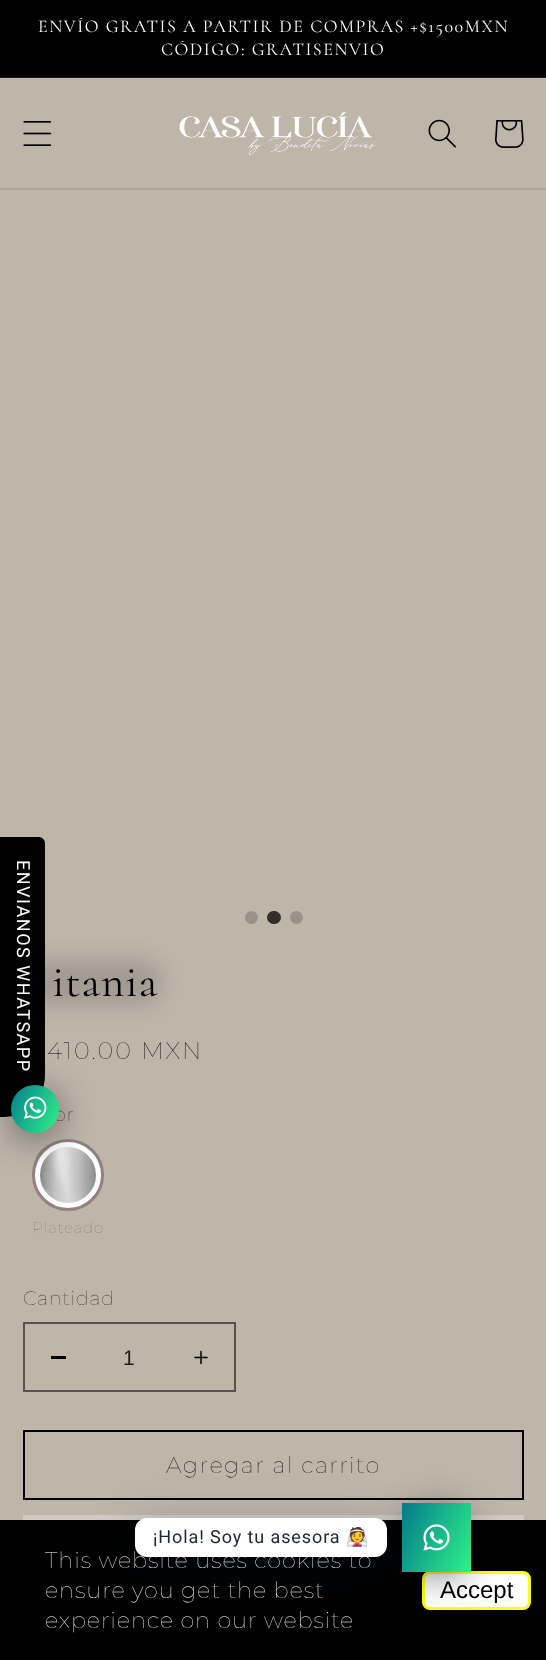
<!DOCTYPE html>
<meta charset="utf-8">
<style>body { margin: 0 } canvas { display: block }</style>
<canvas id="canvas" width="546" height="1660"></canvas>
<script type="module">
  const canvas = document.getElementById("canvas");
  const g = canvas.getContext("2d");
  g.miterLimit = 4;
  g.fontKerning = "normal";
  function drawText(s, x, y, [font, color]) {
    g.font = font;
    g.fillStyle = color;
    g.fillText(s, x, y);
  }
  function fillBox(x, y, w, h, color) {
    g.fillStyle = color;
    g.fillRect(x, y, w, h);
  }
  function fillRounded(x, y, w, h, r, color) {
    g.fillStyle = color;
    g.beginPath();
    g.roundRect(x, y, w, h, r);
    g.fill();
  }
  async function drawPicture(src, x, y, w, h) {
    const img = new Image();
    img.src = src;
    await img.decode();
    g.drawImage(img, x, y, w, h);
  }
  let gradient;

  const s1 = ["18px Cormorant", "#FFFFFF"];
  const s2 = ["100 19.5px Montserrat", "#302E2B"];
  const s3 = ["18px Roboto", "#1E2433"];
  const s4 = ["18px Noto Color Emoji", "#1E2433"];
  const s5 = ["45px Cormorant", "#000000"];
  const s6 = ["100 24px Montserrat", "#000000"];
  const s7 = ["100 15px Montserrat", "#877474"];
  const s8 = ["21px Liberation Sans", "#1D1B1A"];
  const s9 = ["100 22.5px Montserrat", "#000000"];
  const s10 = ["100 22.5px Montserrat", "#FFFFFF"];
  const s11 = ["24px Liberation Sans", "#000000"];

  fillBox(0, 0, 546, 1660, "#BFB6AA");
  fillBox(0, 78, 546, 1, "#C4BCB1");
  fillBox(0, 0, 546, 77, "#000000");
  fillBox(0, 77, 546, 1, "#141414");
  g.letterSpacing = "1.5px";
  drawText("ENVÍO GRATIS A PARTIR DE COMPRAS +$1500MXN", 38, 32, s1);
  drawText("CÓDIGO: GRATISENVIO", 161, 55, s1);
  fillBox(0, 188, 546, 2, "#B0A79C");
  await drawPicture("pic1.png", 23, 121, 29, 25);
  await drawPicture("pic2.png", 179, 112, 197, 43);
  await drawPicture("pic3.png", 428, 119, 28, 29);
  await drawPicture("pic4.png", 495, 120, 29, 28);
  g.fillStyle = "rgba(0, 0, 0, 0.15)";
  g.filter = "blur(10.5px)";
  g.beginPath();
  g.roundRect(-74, 960, 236, 45, 42);
  g.fill();
  g.filter = "none";
  g.fillStyle = "#000000";
  g.beginPath();
  g.moveTo(0, 1117);
  g.lineTo(0, 837);
  g.lineTo(39, 837);
  g.bezierCurveTo(42, 837, 45, 840, 45, 843);
  g.lineTo(45, 1075);
  g.bezierCurveTo(45, 1099, 26, 1117, 3, 1117);
  g.closePath();
  g.fill();
  g.font = "18px Roboto";
  g.fillStyle = "#FFFFFF";
  g.save();
  g.translate(17, 860);
  g.rotate(90 * Math.PI / 180);
  g.fillText("ENVIANOS WHATSAPP", 0, 0);
  g.restore();
  await drawPicture("pic7.png", 36, 1143, 63, 63);
  g.beginPath();
  g.arc(68, 1175, 33.5, 0, Math.PI * 2);
  g.strokeStyle = "#918181";
  g.lineWidth = 5;
  g.stroke();
  g.beginPath();
  g.arc(68, 1175, 30.5, 0, Math.PI * 2);
  g.strokeStyle = "#FFFFFF";
  g.stroke();
  g.fillStyle = "rgba(2, 6, 16, 0.5)";
  g.filter = "blur(18px)";
  g.beginPath();
  g.roundRect(11, 1091, 48, 48, 24);
  g.fill();
  g.filter = "none";
  g.letterSpacing = "0.5px";
  drawText("or", 54, 1121, s2);
  gradient = g.createLinearGradient(5.6, 1095, 63, 1122);
  gradient.addColorStop(0, "#047C8D");
  gradient.addColorStop(1, "#2FF289");
  g.fillStyle = gradient;
  g.beginPath();
  g.arc(35, 1109, 24, 0, Math.PI * 2);
  g.fill();
  await drawPicture("pic5.png", 24, 1096, 23, 23);
  g.strokeStyle = "#000000";
  g.lineWidth = 2;
  g.strokeRect(24, 1431, 499, 68);
  fillBox(23, 1515, 501, 5, "#D1CBC2");
  fillBox(0, 1520, 546, 140, "#000000");
  g.fillStyle = "#FFFFFF";
  g.beginPath();
  g.roundRect(423.5, 1572.5, 106, 36, 6.5);
  g.fill();
  g.strokeStyle = "#FAFF16";
  g.lineWidth = 3;
  g.stroke();
  g.fillStyle = "rgba(2, 6, 16, 0.5)";
  g.filter = "blur(18px)";
  g.beginPath();
  g.roundRect(402, 1509, 69, 69, 34.5);
  g.fill();
  g.filter = "none";
  gradient = g.createLinearGradient(395, 1518, 478, 1557);
  gradient.addColorStop(0, "#047C8D");
  gradient.addColorStop(1, "#2FF289");
  g.fillStyle = gradient;
  g.fillRect(402, 1503, 69, 69);
  g.fillStyle = "rgba(0, 18, 46, 0.24)";
  g.filter = "blur(24px)";
  g.beginPath();
  g.roundRect(135, 1527, 252, 39, 12);
  g.fill();
  g.filter = "none";
  fillRounded(135, 1518, 252, 39, 12, "#FFFFFF");
  g.letterSpacing = "0.9px";
  drawText("¡Hola! Soy tu asesora", 153, 1543, s3);
  drawText("👰", 346, 1543, s4);
  await drawPicture("pic6.png", 423, 1524, 27, 27);
  g.fillStyle = "#999288";
  g.beginPath();
  g.arc(251.5, 917.5, 6.5, 0, Math.PI * 2);
  g.fill();
  fillRounded(267, 911, 14, 13, 6.5, "#302E2B");
  g.fillStyle = "#999288";
  g.beginPath();
  g.arc(296.5, 917.5, 6.5, 0, Math.PI * 2);
  g.fill();
  drawText("itania", 52, 996, s5);
  g.letterSpacing = "2px";
  drawText("410.00 MXN", 47, 1059, s6);
  g.letterSpacing = "0.9px";
  drawText("Plateado", 32, 1233, s7);
  g.letterSpacing = "0.5px";
  drawText("Cantidad", 23, 1305, s2);
  fillBox(51, 1356, 15, 3, "#000000");
  await drawPicture("pic8.png", 194, 1350, 14, 15);
  g.strokeStyle = "#56524D";
  g.lineWidth = 2;
  g.strokeRect(24, 1323, 211, 68);
  g.letterSpacing = "0px";
  drawText("1", 123, 1365, s8);
  g.letterSpacing = "1.5px";
  drawText("Agregar al carrito", 166, 1473, s9);
  g.letterSpacing = "0.9px";
  drawText("This website uses cookies to", 45, 1568, s10);
  drawText("ensure you get the best", 45, 1598, s10);
  drawText("experience on our website", 45, 1628, s10);
  g.letterSpacing = "0px";
  drawText("Accept", 440, 1598, s11);
</script>
